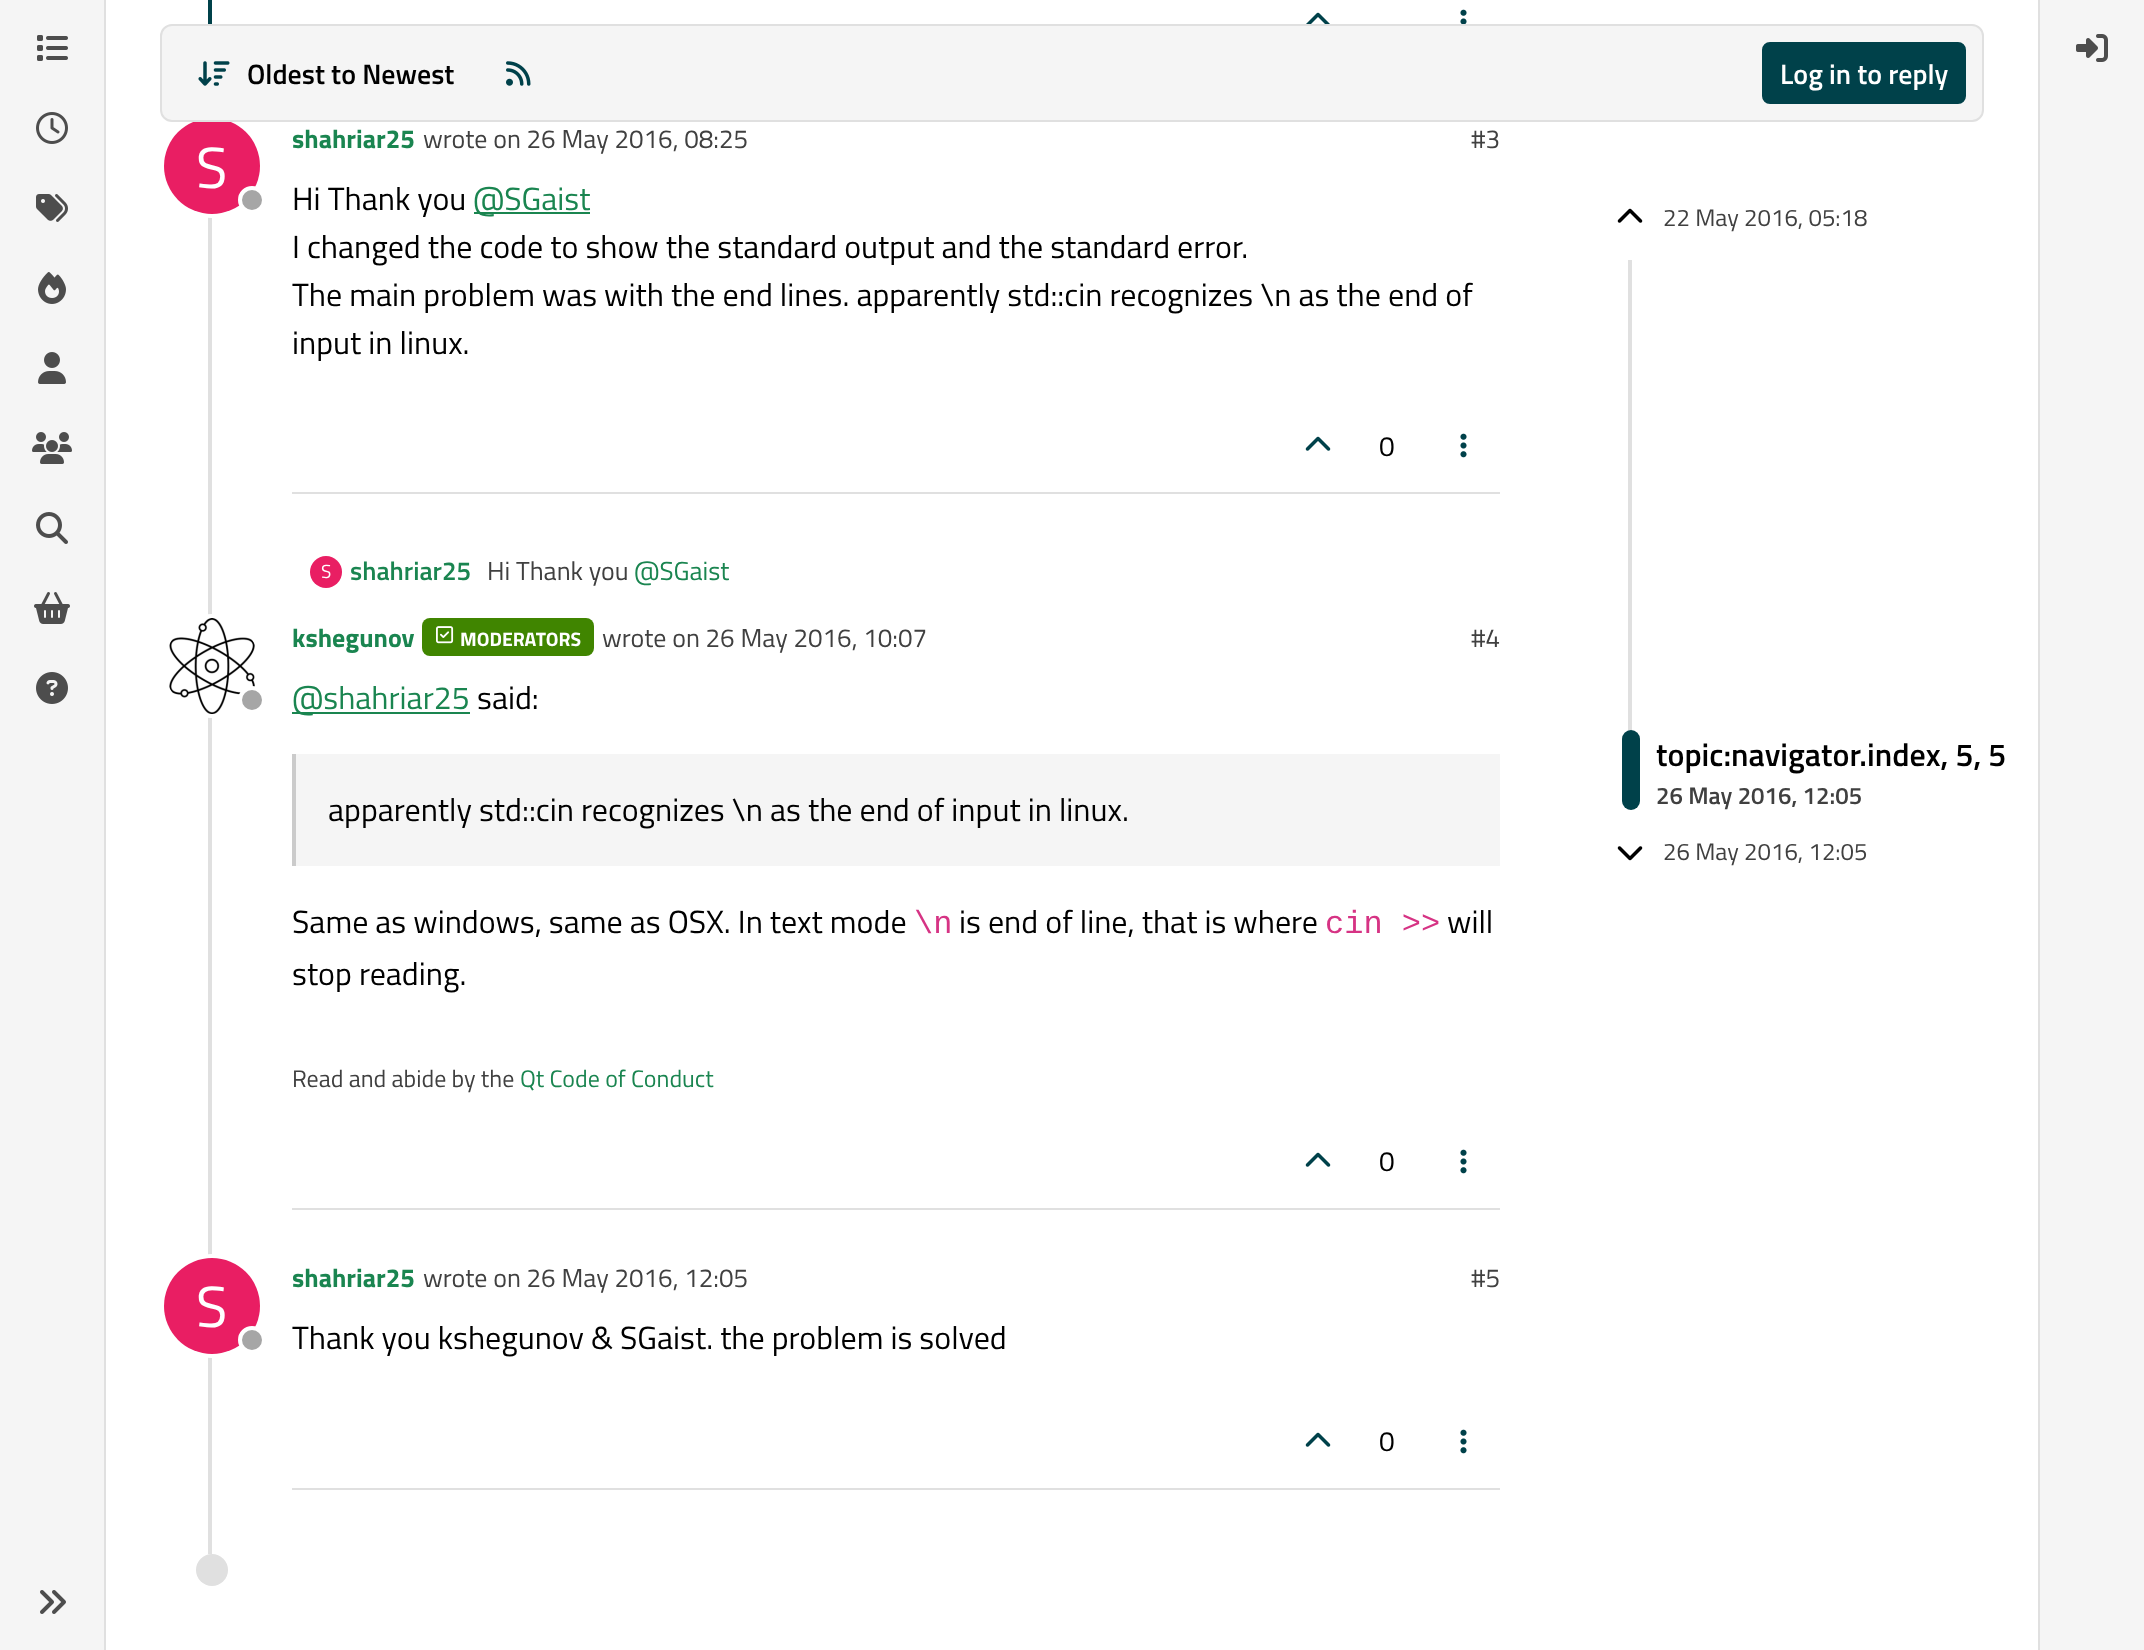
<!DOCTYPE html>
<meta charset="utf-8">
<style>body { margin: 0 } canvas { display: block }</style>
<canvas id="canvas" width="2144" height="1650"></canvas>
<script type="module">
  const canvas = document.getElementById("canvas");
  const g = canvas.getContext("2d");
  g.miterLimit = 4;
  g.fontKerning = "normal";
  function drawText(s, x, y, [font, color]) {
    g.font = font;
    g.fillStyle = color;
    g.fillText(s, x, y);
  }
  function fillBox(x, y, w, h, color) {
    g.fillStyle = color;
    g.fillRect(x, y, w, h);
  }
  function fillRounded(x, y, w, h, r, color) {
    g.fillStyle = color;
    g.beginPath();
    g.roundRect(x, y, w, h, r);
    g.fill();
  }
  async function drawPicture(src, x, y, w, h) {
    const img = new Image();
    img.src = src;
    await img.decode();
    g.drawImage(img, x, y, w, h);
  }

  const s1 = ["600 28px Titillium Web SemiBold", "#000000"];
  const s2 = ["600 28px Titillium Web SemiBold", "#FFFFFF"];
  const s3 = ["58px Titillium Web", "#FFFFFF"];
  const s4 = ["bold 26px Titillium Web", "#1A8550"];
  const s5 = ["26px Titillium Web", "#404040"];
  const s6 = ["32px Titillium Web", "#000000"];
  const s7 = ["32px Titillium Web", "#1A8550"];
  const s8 = ["28px Titillium Web", "#000000"];
  const s9 = ["19px Titillium Web", "#FFFFFF"];
  const s10 = ["600 26px Titillium Web SemiBold", "#1A8550"];
  const s11 = ["26px Titillium Web", "#1A8550"];
  const s12 = ["bold 19.5px Titillium Web", "#FFFFFF"];
  const s13 = ["32px Liberation Mono", "#D63384"];
  const s14 = ["24px Titillium Web", "#404040"];
  const s15 = ["24px Titillium Web", "#1A8550"];
  const s16 = ["600 32px Titillium Web SemiBold", "#000000"];
  const s17 = ["600 24px Titillium Web SemiBold", "#404040"];

  fillBox(0, 0, 2144, 1650, "#FFFFFF");
  fillBox(0, 0, 104, 1650, "#F5F5F5");
  fillBox(104, 0, 2, 1650, "#E0E0E0");
  await drawPicture("pic1.png", 37, 35, 31, 26);
  await drawPicture("pic2.png", 36, 112, 32, 32);
  await drawPicture("pic3.png", 36, 194, 32, 28);
  await drawPicture("pic4.png", 38, 272, 28, 32);
  await drawPicture("pic5.png", 38, 352, 28, 32);
  await drawPicture("pic6.png", 32, 432, 40, 32);
  await drawPicture("pic7.png", 36, 512, 32, 32);
  await drawPicture("pic8.png", 34, 592, 36, 32);
  await drawPicture("pic9.png", 36, 672, 32, 32);
  await drawPicture("pic10.png", 40, 1590, 26, 24);
  fillBox(208, 213, 4, 1341, "#E0E0E0");
  g.beginPath();
  g.arc(212, 166, 50, 0, Math.PI * 2);
  g.strokeStyle = "#FFFFFF";
  g.lineWidth = 4;
  g.stroke();
  g.fillStyle = "#E91E63";
  g.beginPath();
  g.arc(212, 166, 48, 0, Math.PI * 2);
  g.fill();
  g.fillStyle = "#F5F5F5";
  g.beginPath();
  g.roundRect(161, 25, 1822, 96, 11);
  g.fill();
  g.strokeStyle = "#E0E0E0";
  g.lineWidth = 2;
  g.stroke();
  await drawPicture("pic11.png", 198, 61, 32, 25);
  drawText("Oldest to Newest", 247, 84, s1);
  await drawPicture("pic12.png", 506, 61, 25, 25);
  g.fillStyle = "#00414A";
  g.beginPath();
  g.roundRect(1763, 43, 202, 60, 7);
  g.fill();
  g.strokeStyle = "#00414A";
  g.stroke();
  drawText("Log in to reply", 1780, 84, s2);
  fillBox(208, 0, 4, 24, "#00414A");
  await drawPicture("pic13.png", 1306, 12, 24, 12);
  await drawPicture("pic14.png", 1460, 9, 7, 15);
  drawText("S", 196, 188, s3);
  g.fillStyle = "#A6A6A6";
  g.beginPath();
  g.arc(252, 200, 12, 0, Math.PI * 2);
  g.fill();
  g.strokeStyle = "#FFFFFF";
  g.lineWidth = 4;
  g.stroke();
  drawText("shahriar25", 292, 148, s4);
  drawText("wrote on 26 May 2016, 08:25", 423, 148, s5);
  drawText("#3", 1471, 148, s5);
  drawText("Hi Thank you", 292, 210, s6);
  fillBox(474, 212, 116, 2, "#1A8550");
  drawText("@SGaist", 473, 210, s7);
  drawText("I changed the code to show the standard output and the standard error.", 292, 258, s6);
  drawText("The main problem was with the end lines. apparently std::cin recognizes \\n as the end of", 292, 306, s6);
  drawText("input in linux.", 292, 354, s6);
  fillBox(292, 492, 1208, 2, "#E0E0E0");
  await drawPicture("pic15.png", 1305, 436, 26, 15);
  drawText("0", 1379, 456, s8);
  await drawPicture("pic16.png", 1460, 433, 7, 25);
  g.fillStyle = "#E91E63";
  g.beginPath();
  g.arc(326, 572, 16, 0, Math.PI * 2);
  g.fill();
  drawText("S", 321, 578, s9);
  drawText("shahriar25", 350, 580, s10);
  drawText("Hi Thank you", 487, 580, s5);
  drawText("@SGaist", 634, 580, s11);
  g.fillStyle = "#FFFFFF";
  g.beginPath();
  g.arc(212, 666, 50, 0, Math.PI * 2);
  g.fill();
  g.stroke();
  await drawPicture("pic17.png", 169, 618, 86, 96);
  g.fillStyle = "#A6A6A6";
  g.beginPath();
  g.arc(252, 700, 12, 0, Math.PI * 2);
  g.fill();
  g.stroke();
  drawText("kshegunov", 292, 647, s4);
  fillRounded(422, 618, 172, 38, 8, "#408500");
  await drawPicture("pic18.png", 436, 626, 18, 18);
  drawText("MODERATORS", 460, 646, s12);
  drawText("wrote on 26 May 2016, 10:07", 602, 647, s5);
  drawText("#4", 1471, 647, s5);
  fillBox(292, 712, 178, 2, "#1A8550");
  drawText("@shahriar25", 292, 709, s7);
  drawText("said:", 477, 709, s6);
  fillBox(296, 754, 1204, 112, "#F5F5F5");
  fillBox(292, 754, 4, 112, "#CBCBCB");
  drawText("apparently std::cin recognizes \\n as the end of input in linux.", 328, 821, s6);
  drawText("Same as windows, same as OSX. In text mode", 292, 933, s6);
  drawText("\\n", 914, 933, s13);
  drawText("is end of line, that is where", 959, 933, s6);
  drawText("cin >>", 1325, 933, s13);
  drawText("will", 1447, 933, s6);
  drawText("stop reading.", 292, 985, s6);
  fillBox(292, 1208, 1208, 2, "#E0E0E0");
  drawText("Read and abide by the", 292, 1087, s14);
  drawText("Qt Code of Conduct", 520, 1087, s15);
  await drawPicture("pic15.png", 1305, 1152, 26, 15);
  drawText("0", 1379, 1171, s8);
  await drawPicture("pic16.png", 1460, 1149, 7, 25);
  g.beginPath();
  g.arc(212, 1306, 50, 0, Math.PI * 2);
  g.stroke();
  g.fillStyle = "#E91E63";
  g.beginPath();
  g.arc(212, 1306, 48, 0, Math.PI * 2);
  g.fill();
  drawText("S", 196, 1327, s3);
  g.fillStyle = "#A6A6A6";
  g.beginPath();
  g.arc(252, 1340, 12, 0, Math.PI * 2);
  g.fill();
  g.stroke();
  drawText("shahriar25", 292, 1287, s4);
  drawText("wrote on 26 May 2016, 12:05", 423, 1287, s5);
  drawText("#5", 1471, 1287, s5);
  drawText("Thank you kshegunov & SGaist. the problem is solved", 292, 1349, s6);
  fillBox(292, 1488, 1208, 2, "#E0E0E0");
  await drawPicture("pic15.png", 1305, 1432, 26, 15);
  drawText("0", 1379, 1451, s8);
  await drawPicture("pic16.png", 1460, 1429, 7, 25);
  g.fillStyle = "#E0E0E0";
  g.beginPath();
  g.arc(212, 1570, 16, 0, Math.PI * 2);
  g.fill();
  await drawPicture("pic19.png", 1617, 208, 26, 15);
  drawText("22 May 2016, 05:18", 1663, 226, s14);
  fillBox(1628, 260, 4, 550, "#E0E0E0");
  fillRounded(1622, 730, 18, 80, 9, "#00414A");
  drawText("topic:navigator.index, 5, 5", 1656, 766, s16);
  drawText("26 May 2016, 12:05", 1656, 804, s17);
  await drawPicture("pic20.png", 1617, 846, 26, 15);
  drawText("26 May 2016, 12:05", 1663, 860, s14);
  fillBox(2040, 0, 104, 1650, "#F5F5F5");
  fillBox(2038, 0, 2, 1650, "#E0E0E0");
  await drawPicture("pic21.png", 2076, 34, 32, 28);
</script>
